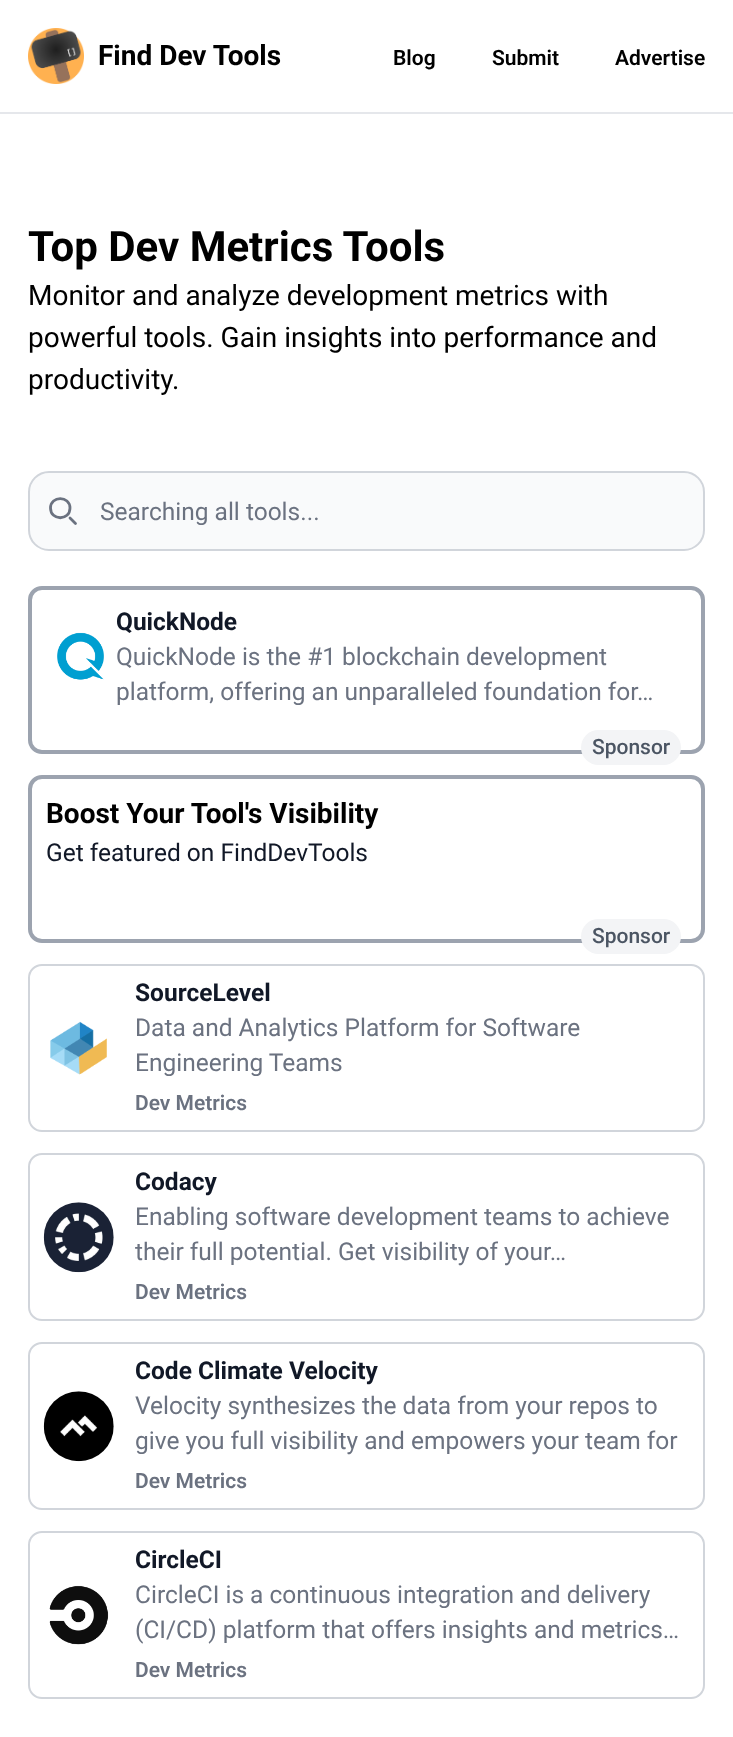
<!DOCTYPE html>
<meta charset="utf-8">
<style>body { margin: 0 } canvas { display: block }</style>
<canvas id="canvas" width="733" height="1737"></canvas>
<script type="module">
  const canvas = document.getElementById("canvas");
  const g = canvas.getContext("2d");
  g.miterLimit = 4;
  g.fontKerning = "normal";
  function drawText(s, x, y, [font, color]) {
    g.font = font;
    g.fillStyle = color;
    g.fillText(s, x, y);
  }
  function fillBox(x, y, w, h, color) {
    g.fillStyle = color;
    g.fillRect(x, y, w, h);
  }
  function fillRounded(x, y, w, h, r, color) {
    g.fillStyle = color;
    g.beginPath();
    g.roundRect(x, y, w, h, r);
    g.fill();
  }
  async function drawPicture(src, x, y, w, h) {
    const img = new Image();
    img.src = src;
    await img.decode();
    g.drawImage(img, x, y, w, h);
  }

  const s1 = ["bold 28px Roboto", "#000000"];
  const s2 = ["600 21px Roboto", "#000000"];
  const s3 = ["bold 42px Roboto", "#000000"];
  const s4 = ["28px Roboto", "#000000"];
  const s5 = ["24.5px Roboto", "#6B7280"];
  const s6 = ["bold 24.5px Roboto", "#111827"];
  const s7 = ["500 21px Roboto", "#4B5563"];
  const s8 = ["24.5px Roboto", "#111827"];
  const s9 = ["600 21px Roboto", "#6B7280"];

  fillBox(0, 0, 733, 1737, "#FFFFFF");
  fillBox(0, 112, 733, 2, "#E5E7EB");
  await drawPicture("pic1.png", 28, 28, 56, 56);
  drawText("Find Dev Tools", 98, 65, s1);
  drawText("Blog", 393, 65, s2);
  drawText("Submit", 492, 65, s2);
  drawText("Advertise", 615, 65, s2);
  drawText("Top Dev Metrics Tools", 28, 261, s3);
  drawText("Monitor and analyze development metrics with", 28, 305, s4);
  drawText("powerful tools. Gain insights into performance and", 28, 347, s4);
  drawText("productivity.", 28, 389, s4);
  g.fillStyle = "#F9FAFB";
  g.beginPath();
  g.roundRect(29, 472, 675, 78, 20);
  g.fill();
  g.strokeStyle = "#D1D5DB";
  g.lineWidth = 2;
  g.stroke();
  g.beginPath();
  g.moveTo(75.5, 523.5);
  g.lineTo(70, 518);
  g.moveTo(70, 508);
  g.bezierCurveTo(70, 521, 50.5, 521, 50.5, 508);
  g.bezierCurveTo(50.5, 495.5, 70, 495.5, 70, 508);
  g.closePath();
  g.strokeStyle = "#6B7280";
  g.lineWidth = 2.8;
  g.lineCap = "round";
  g.lineJoin = "round";
  g.stroke();
  drawText("Searching all tools...", 100, 520, s5);
  g.beginPath();
  g.roundRect(30, 588, 673, 164, 12);
  g.strokeStyle = "#9CA3AF";
  g.lineWidth = 4;
  g.lineJoin = "miter";
  g.stroke();
  await drawPicture("pic2.png", 57, 632, 47, 48);
  drawText("QuickNode", 116, 630, s6);
  drawText("QuickNode is the #1 blockchain development", 116, 665, s5);
  drawText("platform, offering an unparalleled foundation for…", 116, 700, s5);
  fillRounded(581, 730, 100, 35, 17.5, "#F3F4F6");
  drawText("Sponsor", 592, 754, s7);
  g.beginPath();
  g.roundRect(30, 777, 673, 164, 12);
  g.stroke();
  drawText("Boost Your Tool's Visibility", 46, 823, s1);
  fillRounded(581, 919, 100, 35, 17.5, "#F3F4F6");
  drawText("Sponsor", 592, 943, s7);
  drawText("Get featured on FindDevTools", 46, 861, s8);
  g.beginPath();
  g.roundRect(29, 965, 675, 166, 13);
  g.strokeStyle = "#D1D5DB";
  g.lineWidth = 2;
  g.stroke();
  await drawPicture("pic3.png", 50, 1021, 57, 54);
  drawText("SourceLevel", 135, 1001, s6);
  drawText("Data and Analytics Platform for Software", 135, 1036, s5);
  drawText("Engineering Teams", 135, 1071, s5);
  drawText("Dev Metrics", 135, 1110, s9);
  g.beginPath();
  g.roundRect(29, 1154, 675, 166, 13);
  g.stroke();
  await drawPicture("pic4.png", 43, 1202, 71, 71);
  drawText("Codacy", 135, 1190, s6);
  drawText("Enabling software development teams to achieve", 135, 1225, s5);
  drawText("their full potential. Get visibility of your…", 135, 1260, s5);
  drawText("Dev Metrics", 135, 1299, s9);
  g.beginPath();
  g.roundRect(29, 1343, 675, 166, 13);
  g.stroke();
  await drawPicture("pic5.png", 43, 1391, 71, 71);
  drawText("Code Climate Velocity", 135, 1379, s6);
  drawText("Velocity synthesizes the data from your repos to", 135, 1414, s5);
  drawText("give you full visibility and empowers your team for", 135, 1449, s5);
  drawText("Dev Metrics", 135, 1488, s9);
  g.beginPath();
  g.roundRect(29, 1532, 675, 166, 13);
  g.stroke();
  await drawPicture("pic6.png", 49, 1585, 60, 60);
  drawText("CircleCI", 135, 1568, s6);
  drawText("CircleCI is a continuous integration and delivery", 135, 1603, s5);
  drawText("(CI/CD) platform that offers insights and metrics…", 135, 1638, s5);
  drawText("Dev Metrics", 135, 1677, s9);
</script>
